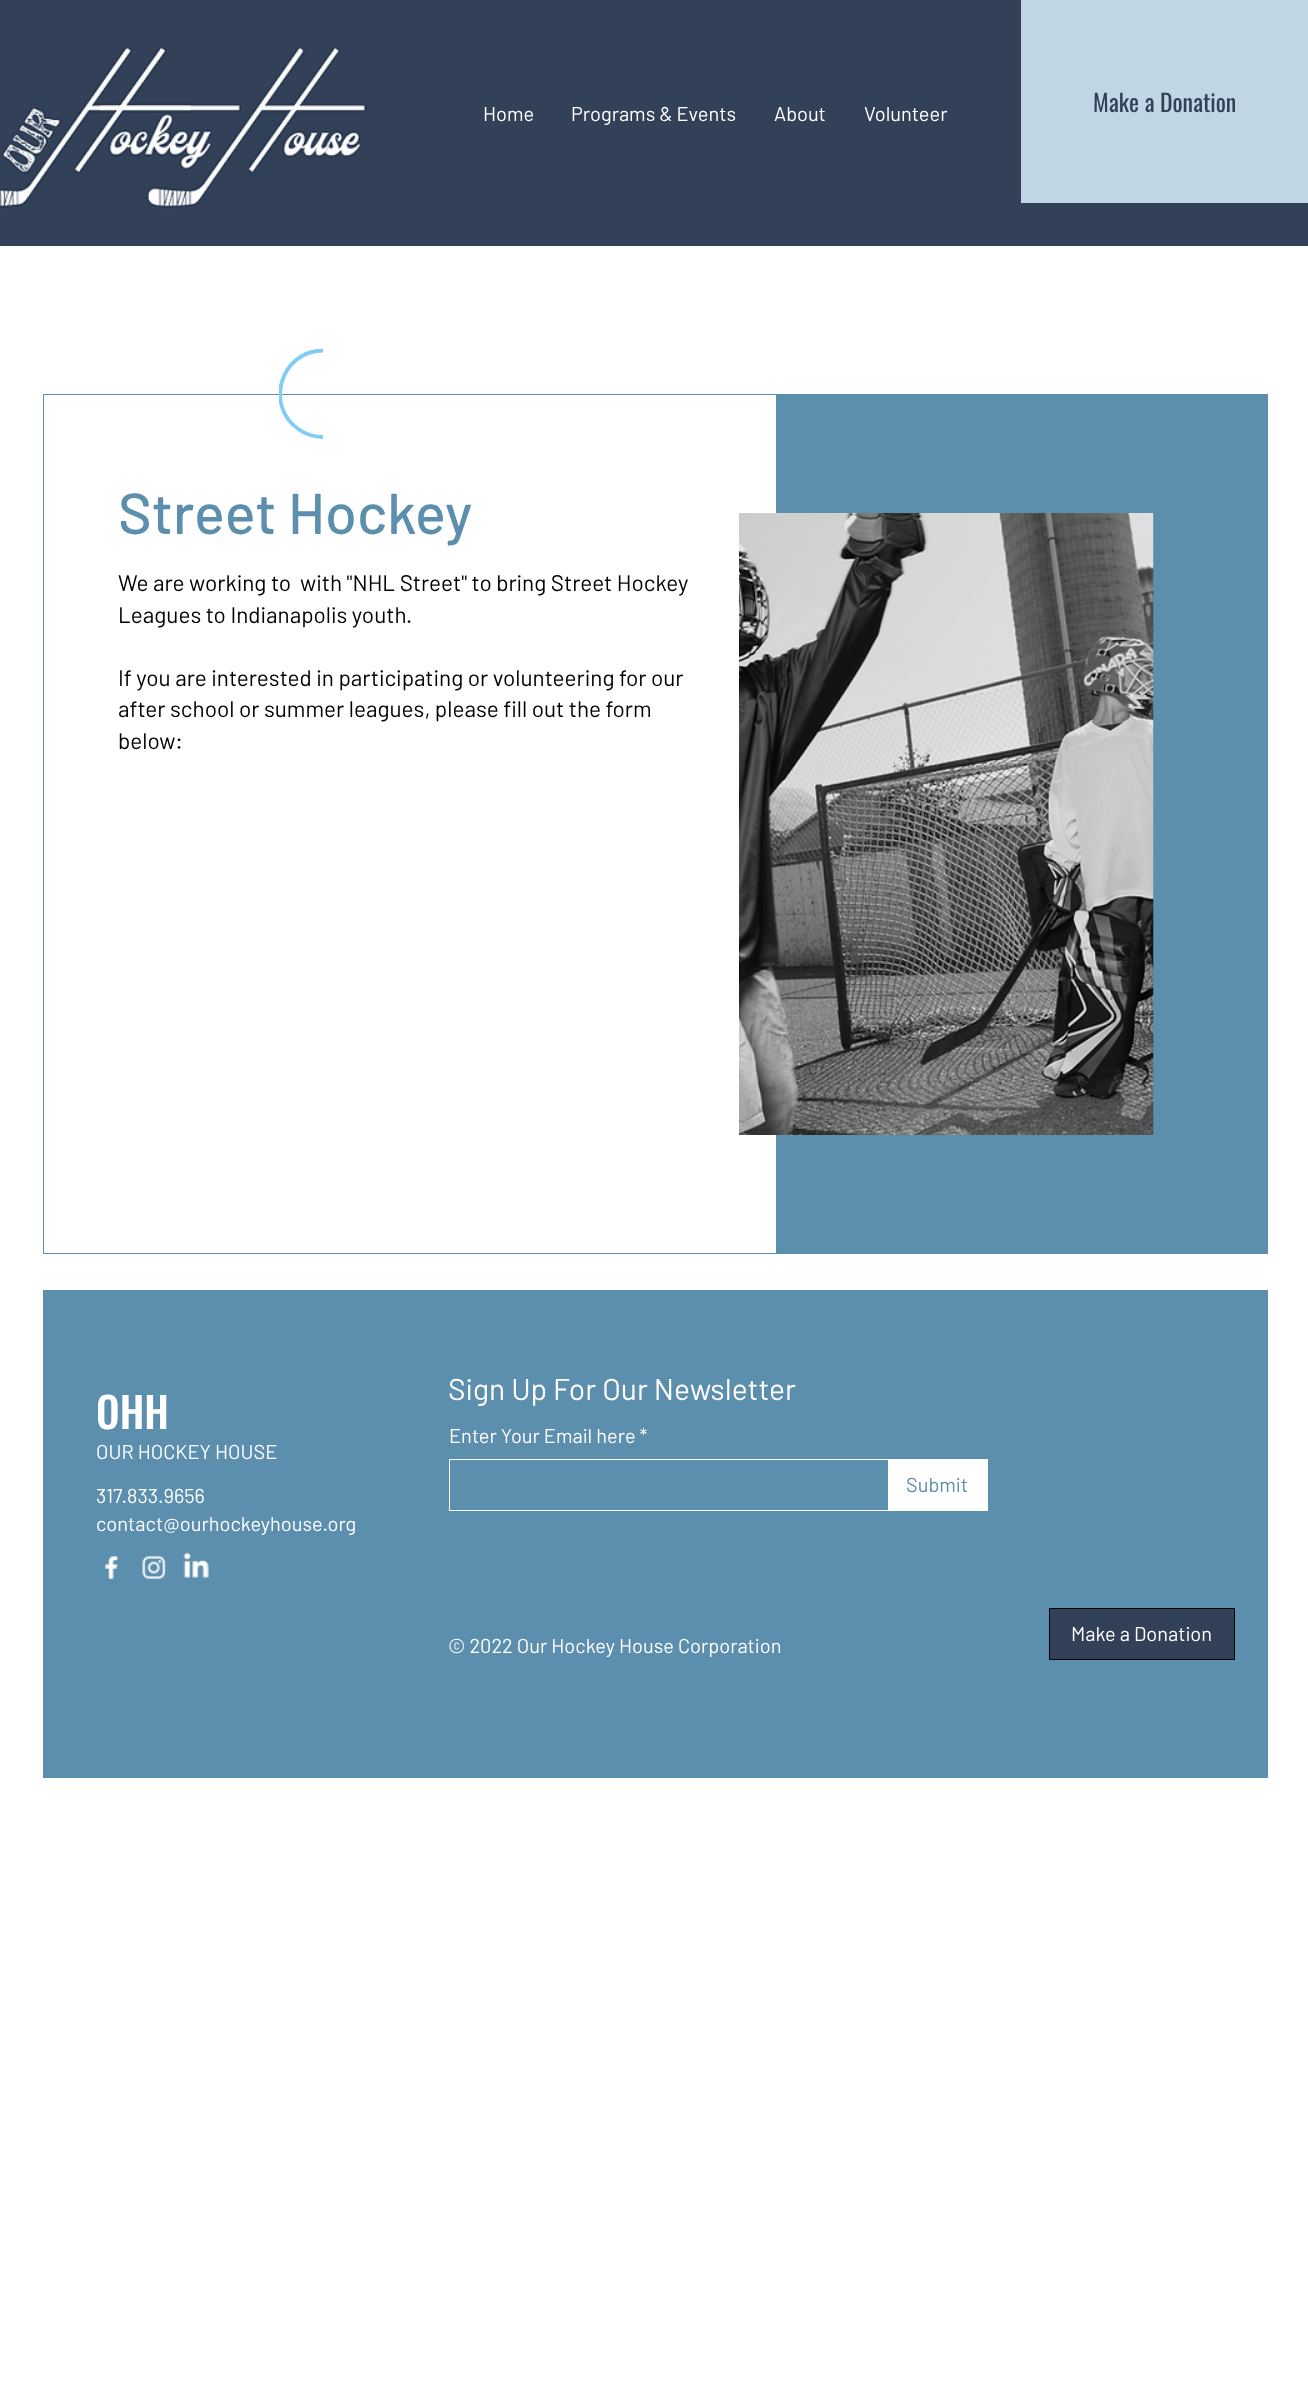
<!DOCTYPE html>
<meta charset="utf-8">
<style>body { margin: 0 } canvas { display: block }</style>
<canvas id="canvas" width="1308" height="2387"></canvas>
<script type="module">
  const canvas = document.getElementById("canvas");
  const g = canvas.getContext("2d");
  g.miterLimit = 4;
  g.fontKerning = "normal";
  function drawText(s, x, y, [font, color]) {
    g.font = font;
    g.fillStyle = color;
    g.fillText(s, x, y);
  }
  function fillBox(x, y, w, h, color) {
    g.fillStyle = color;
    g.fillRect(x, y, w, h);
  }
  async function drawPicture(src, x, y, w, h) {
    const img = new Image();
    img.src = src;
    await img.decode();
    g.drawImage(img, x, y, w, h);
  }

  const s1 = ["23.75px Oswald", "#324158"];
  const s2 = ["20px Barlow", "#FFFFFF"];
  const s3 = ["500 57.5px Barlow", "#5C8EAD"];
  const s4 = ["22.5px Barlow", "#000000"];
  const s5 = ["500 42px Oswald", "#FFFFFF"];
  const s6 = ["30px Barlow", "#FFFFFF"];
  const s7 = ["20px Barlow", "#5C8EAD"];

  fillBox(0, 0, 1308, 2387, "#FFFFFF");
  fillBox(0, 0, 1308, 246, "#324158");
  await drawPicture("pic1.png", 0, 46, 367, 163);
  fillBox(1021, 0, 287, 203, "#C0D6E4");
  drawText("Make a Donation", 1093, 112, s1);
  drawText("Home", 483, 121, s2);
  drawText("Programs & Events", 571, 121, s2);
  drawText("About", 774, 121, s2);
  drawText("Volunteer", 864, 121, s2);
  fillBox(43, 394, 1225, 860, "#5C8EAD");
  fillBox(44, 395, 732, 858, "#FFFFFF");
  g.save();
  g.beginPath();
  g.rect(279, 349, 45, 90);
  g.clip();
  g.beginPath();
  g.moveTo(323, 437);
  g.bezierCurveTo(314.5, 437, 306, 434.5, 299, 429.5);
  g.bezierCurveTo(264, 406, 281, 350.5, 323, 350.5);
  g.strokeStyle = "#7FCCF7";
  g.lineWidth = 3.8;
  g.stroke();
  g.restore();
  drawText("Street Hockey", 118, 534, s3);
  drawText("We are working to  with \"NHL Street\" to bring Street Hockey", 118, 591, s4);
  drawText("Leagues to Indianapolis youth.", 118, 623, s4);
  drawText("If you are interested in participating or volunteering for our", 118, 686, s4);
  drawText("after school or summer leagues, please fill out the form", 118, 717, s4);
  drawText("below:", 118, 749, s4);
  await drawPicture("pic2.png", 739, 513, 415, 622);
  fillBox(43, 1290, 1225, 488, "#5C8EAD");
  drawText("OHH", 96, 1429, s5);
  drawText("OUR HOCKEY HOUSE", 96, 1459, s2);
  drawText("317.833.9656", 96, 1503, s2);
  drawText("contact@ourhockeyhouse.org", 96, 1531, s2);
  await drawPicture("pic3.png", 104, 1555, 14, 25);
  await drawPicture("pic4.png", 142, 1556, 24, 23);
  await drawPicture("pic5.png", 183, 1552, 26, 26);
  drawText("Sign Up For Our Newsletter", 448, 1400, s6);
  drawText("Enter Your Email here *", 449, 1443, s2);
  g.strokeStyle = "#FFFFFF";
  g.strokeRect(449.5, 1459.5, 439, 51);
  fillBox(889, 1459, 99, 52, "#FFFFFF");
  drawText("Submit", 906, 1492, s7);
  drawText("© 2022 Our Hockey House Corporation", 448, 1653, s2);
  g.fillStyle = "#324158";
  g.beginPath();
  g.rect(1049.5, 1608.5, 185, 51);
  g.fill();
  g.strokeStyle = "#000000";
  g.stroke();
  drawText("Make a Donation", 1071, 1641, s2);
</script>
